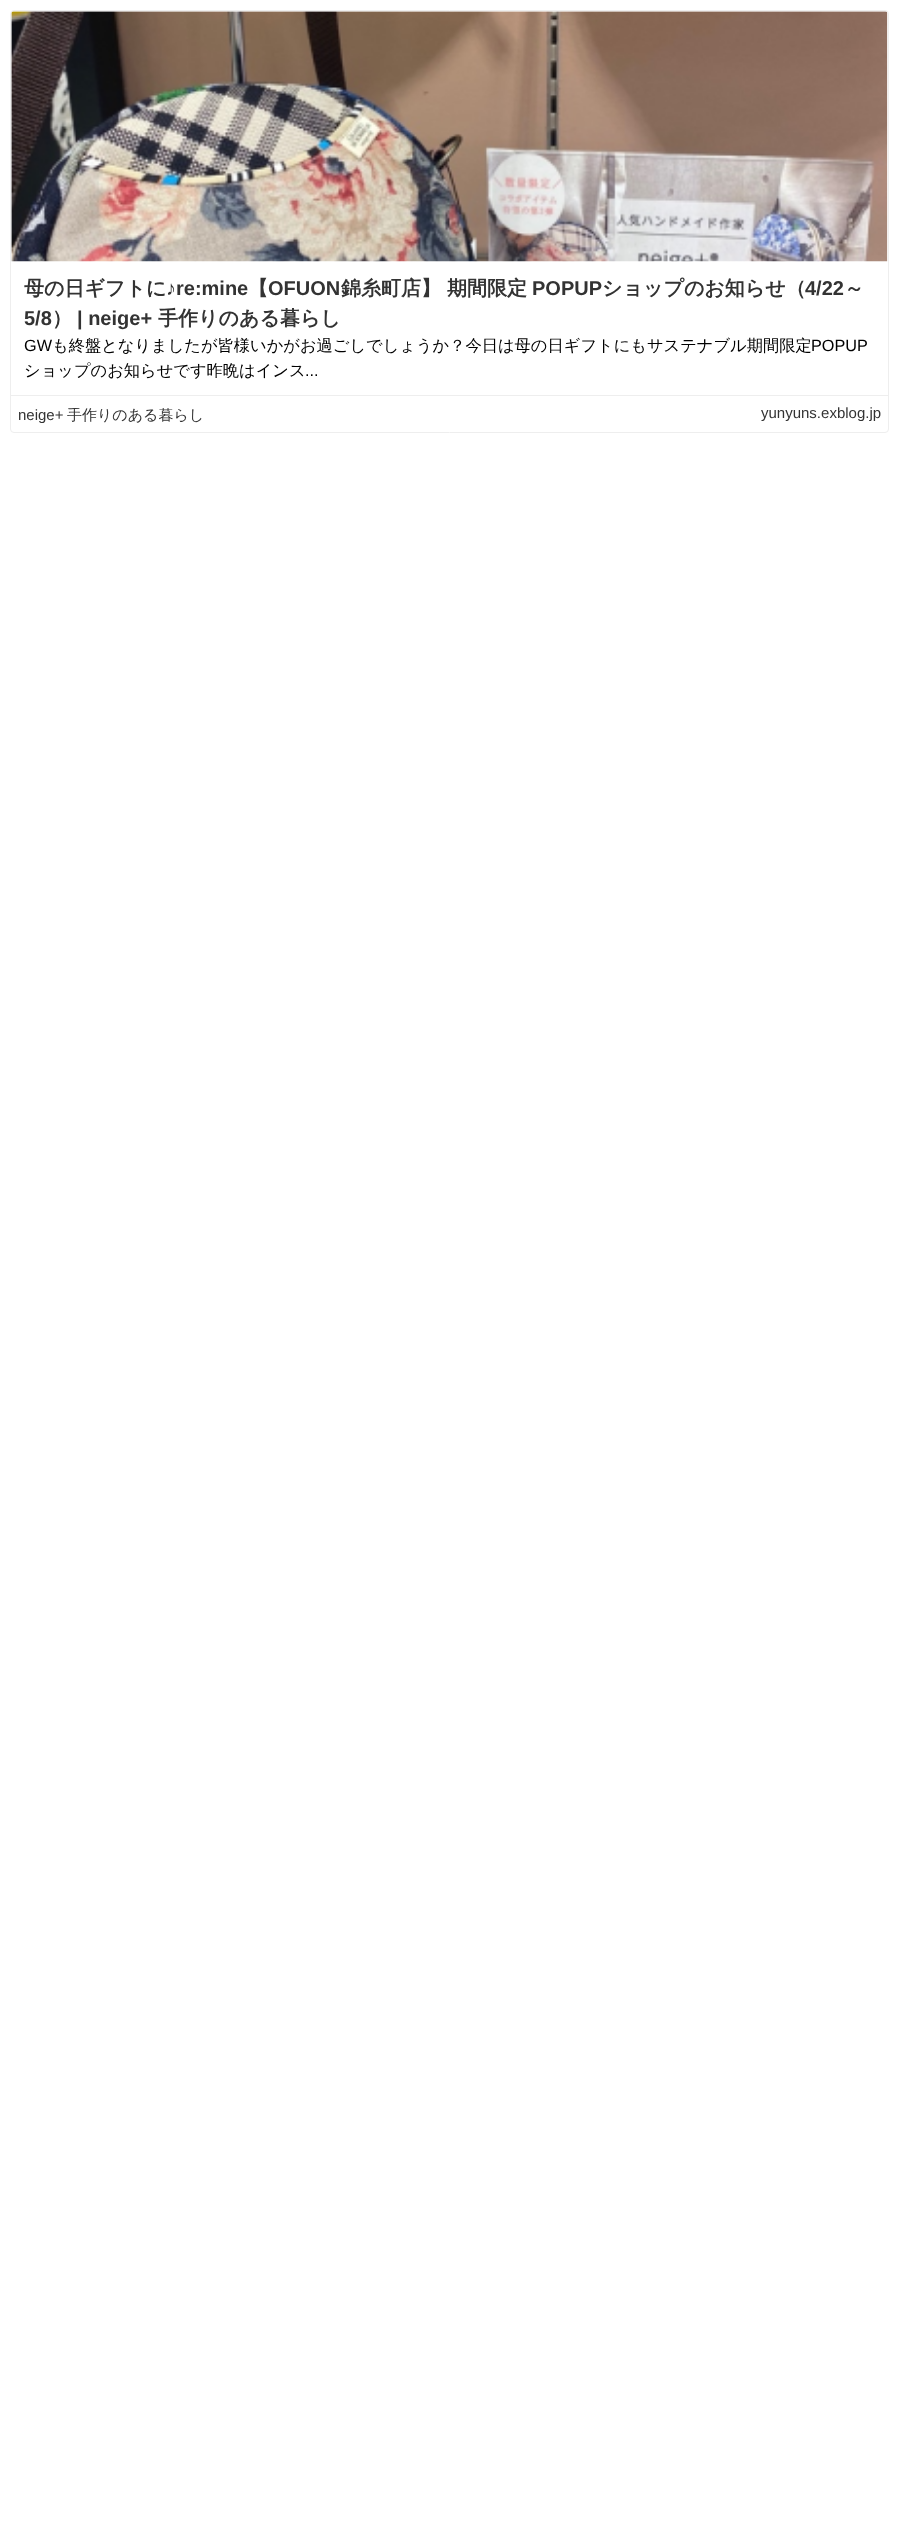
<!DOCTYPE html>
<meta charset="utf-8">
<style>body { margin: 0 } canvas { display: block }</style>
<canvas id="canvas" width="898" height="2537"></canvas>
<script type="module">
  const canvas = document.getElementById("canvas");
  const g = canvas.getContext("2d");
  g.miterLimit = 4;
  g.fontKerning = "normal";
  function drawText(s, x, y, [font, color]) {
    g.font = font;
    g.fillStyle = color;
    g.fillText(s, x, y);
  }
  function fillBox(x, y, w, h, color) {
    g.fillStyle = color;
    g.fillRect(x, y, w, h);
  }
  async function drawPicture(src, x, y, w, h) {
    const img = new Image();
    img.src = src;
    await img.decode();
    g.drawImage(img, x, y, w, h);
  }

  const s1 = ["bold 20px WenQuanYi Zen Hei", "#333333"];
  const s2 = ["bold 20px Liberation Sans", "#333333"];
  const s3 = ["16.25px Liberation Sans", "#000000"];
  const s4 = ["500 16.25px WenQuanYi Zen Hei", "#000000"];
  const s5 = ["15px Liberation Sans", "#333333"];
  const s6 = ["500 15px WenQuanYi Zen Hei", "#333333"];

  fillBox(0, 0, 898, 2537, "#FFFFFF");
  g.beginPath();
  g.roundRect(10.5, 10.5, 878, 422, 3.5);
  g.strokeStyle = "#EEEEEE";
  g.stroke();
  await drawPicture("pic1.png", 11, 11, 877, 251);
  drawText("母の日ギフトに", 24, 295, s1);
  drawText("♪re:mine", 166, 295, s2);
  drawText("【", 248, 295, s1);
  drawText("OFUON", 268, 295, s2);
  drawText("錦糸町店】 期間限定", 341, 295, s1);
  drawText("POPUP", 532, 295, s2);
  drawText("ショップのお知らせ（", 602, 295, s1);
  drawText("4/22", 805, 295, s2);
  drawText("～", 844, 295, s1);
  drawText("5/8", 24, 325, s2);
  drawText("）", 52, 325, s1);
  drawText("| neige+", 77, 325, s2);
  drawText("手作りのある暮らし", 158, 325, s1);
  drawText("GW", 24, 351, s3);
  drawText("も終盤となりましたが皆様いかがお過ごしでしょうか？今日は母の日ギフトにもサステナブル期間限定", 52, 351, s4);
  drawText("POPUP", 811, 351, s3);
  drawText("ショップのお知らせです昨晩はインス", 24, 376, s4);
  drawText("...", 305, 376, s3);
  fillBox(11, 395, 877, 1, "#EEEEEE");
  drawText("neige+", 18, 420, s5);
  g.save();
  g.beginPath();
  g.rect(18, 408, 347, 15);
  g.clip();
  drawText("手作りのある暮らし", 67, 420, s6);
  g.restore();
  drawText("yunyuns.exblog.jp", 761, 418, s5);
</script>
